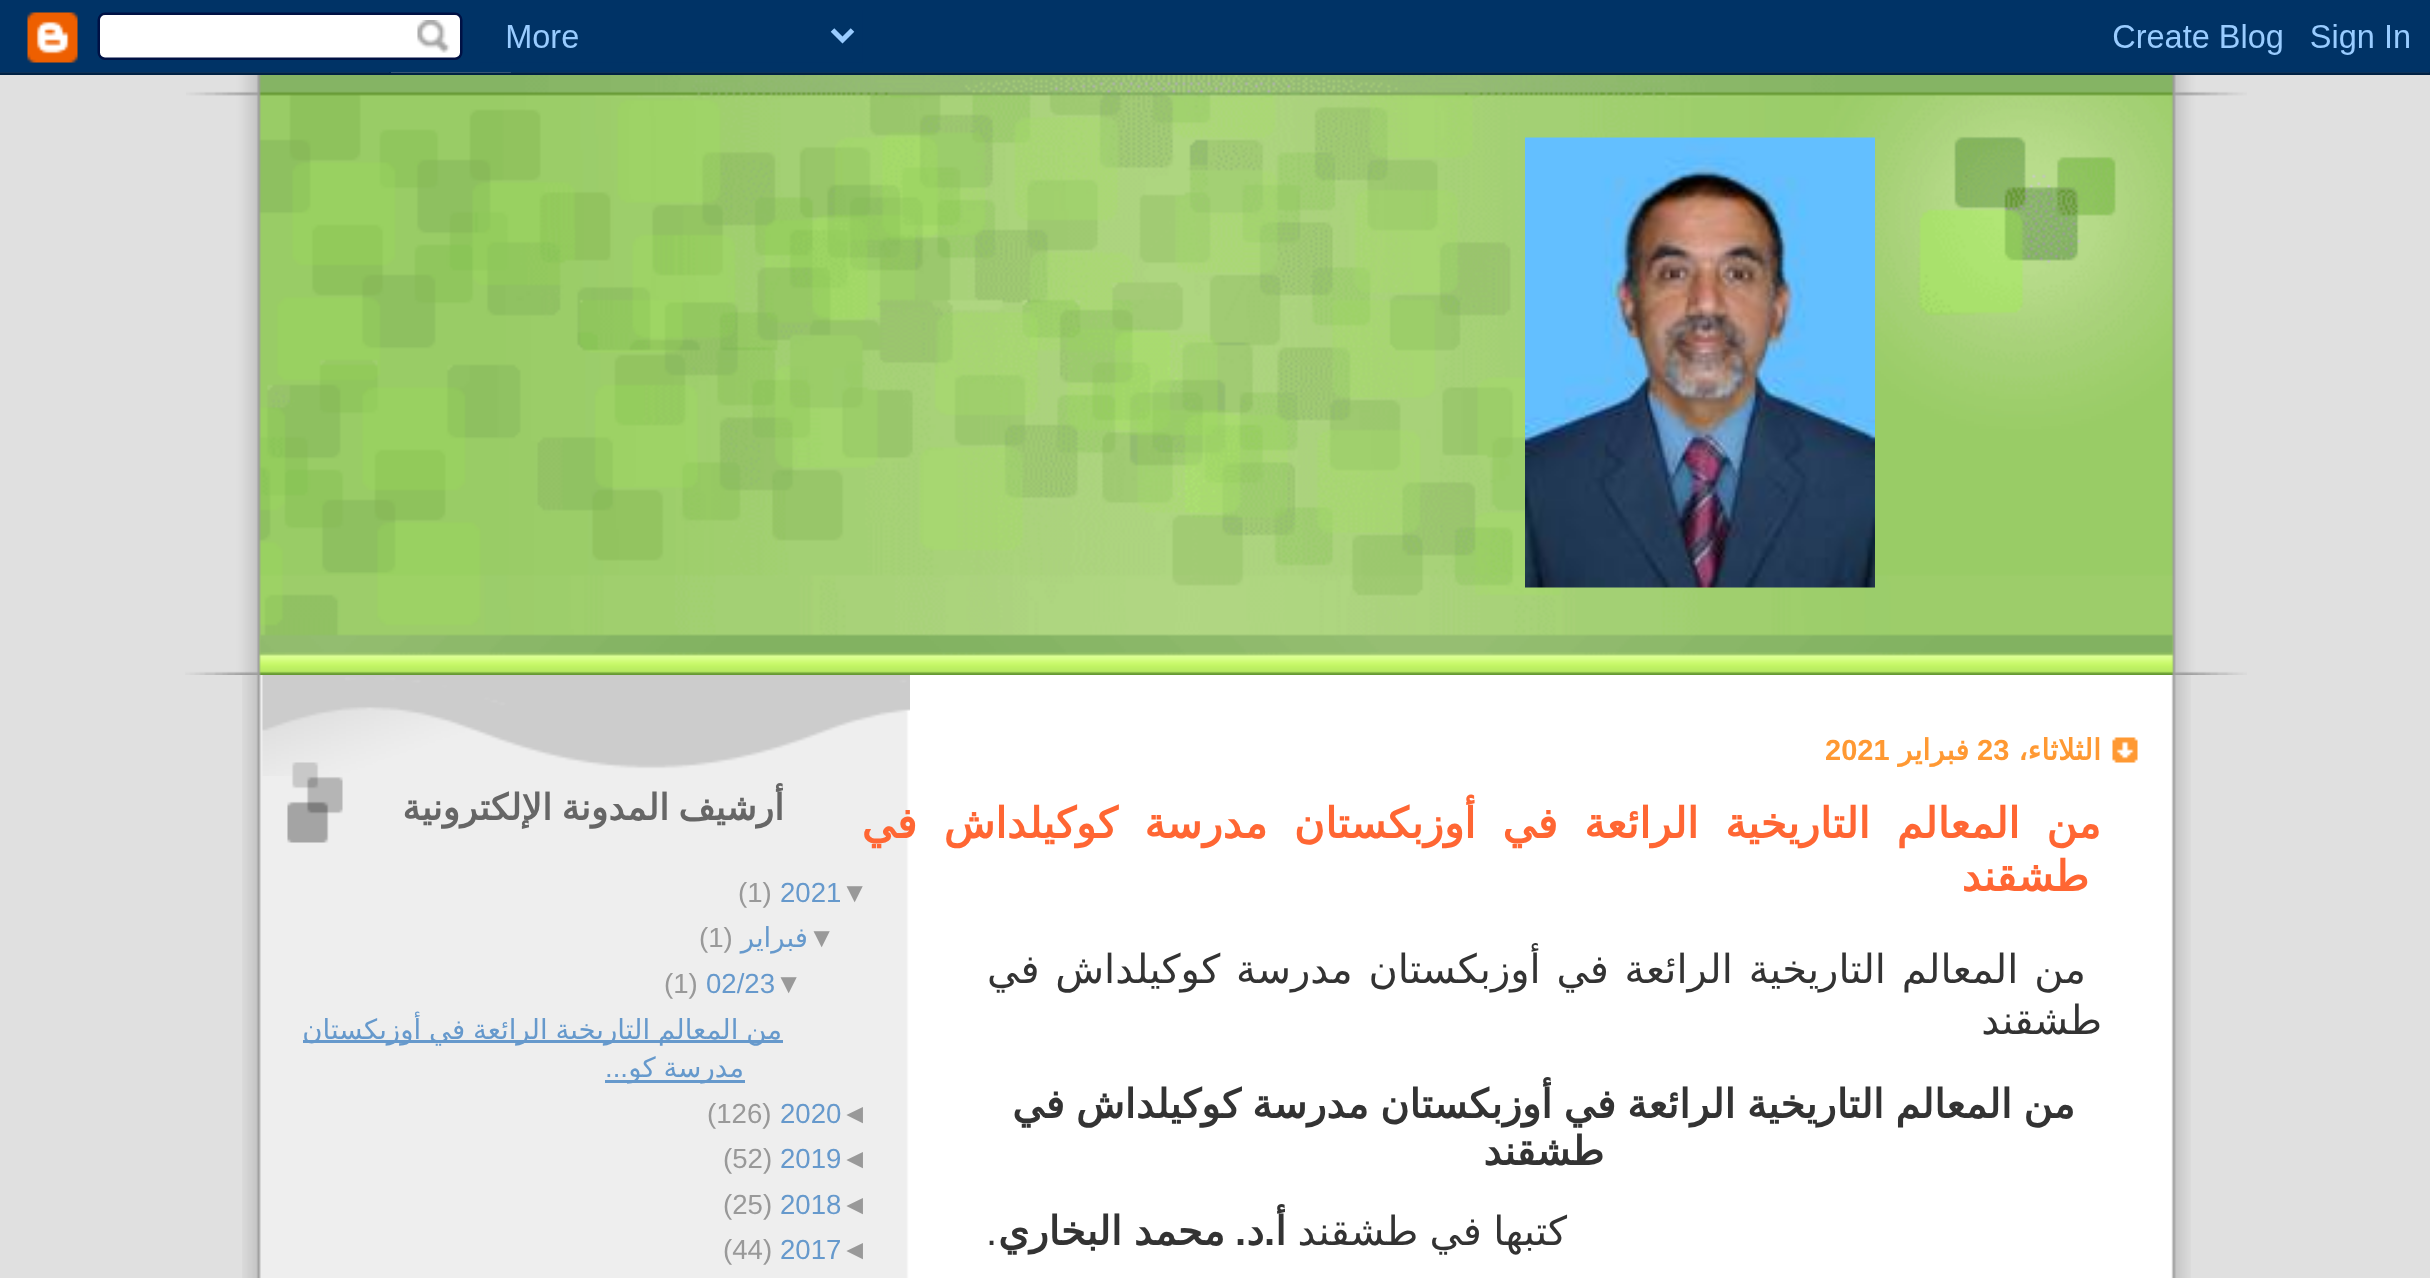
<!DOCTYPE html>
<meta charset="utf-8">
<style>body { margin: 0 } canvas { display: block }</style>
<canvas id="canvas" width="2430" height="1278"></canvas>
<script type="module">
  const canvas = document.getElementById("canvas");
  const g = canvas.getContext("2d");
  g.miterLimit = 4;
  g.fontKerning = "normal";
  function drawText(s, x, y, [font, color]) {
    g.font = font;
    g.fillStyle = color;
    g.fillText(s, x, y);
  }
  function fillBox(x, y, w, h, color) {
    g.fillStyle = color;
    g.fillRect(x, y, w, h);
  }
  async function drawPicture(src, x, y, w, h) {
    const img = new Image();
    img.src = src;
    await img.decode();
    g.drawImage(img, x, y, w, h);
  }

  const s1 = ["bold 29px DejaVu Sans", "#FF9933"];
  const s2 = ["bold 29px Liberation Sans", "#FF9933"];
  const s3 = ["bold 42.25px DejaVu Sans", "#FF6633"];
  const s4 = ["40px DejaVu Sans", "#333333"];
  const s5 = ["bold 40px DejaVu Sans", "#333333"];
  const s6 = ["bold 40px Liberation Sans", "#333333"];
  const s7 = ["40px Liberation Sans", "#333333"];
  const s8 = ["bold 36px DejaVu Sans", "#666666"];
  const s9 = ["27.6px Liberation Sans", "#999999"];
  const s10 = ["27.6px Liberation Sans", "#6699CC"];
  const s11 = ["27.6px DejaVu Sans", "#6699CC"];

  fillBox(0, 0, 2430, 1278, "#E0E0E0");
  await drawPicture("pic1.png", 0, 0, 2430, 75);
  await drawPicture("pic2.png", 242, 675, 1949, 603);
  await drawPicture("pic3.png", 186, 75, 2061, 599);
  await drawPicture("pic4.png", 185, 634, 2062, 41);
  await drawPicture("pic5.png", 1525, 137, 350, 451);
  await drawPicture("pic6.png", 2112, 737, 26, 26);
  g.direction = "rtl";
  drawText("الثلاثاء،", 2101, 760, s1);
  g.direction = "ltr";
  drawText("23", 1977, 760, s2);
  g.direction = "rtl";
  drawText("فبراير", 1969, 760, s1);
  g.direction = "ltr";
  drawText("2021", 1825, 760, s2);
  g.letterSpacing = "-2.5px";
  g.wordSpacing = "15.5px";
  g.direction = "rtl";
  drawText("من المعالم التاريخية الرائعة في أوزبكستان مدرسة كوكيلداش في", 2101, 838, s3);
  g.wordSpacing = "0px";
  drawText("طشقند", 2089, 891, s3);
  g.letterSpacing = "0px";
  g.wordSpacing = "3px";
  drawText("من المعالم التاريخية الرائعة في أوزبكستان مدرسة كوكيلداش في", 2086, 983, s4);
  g.wordSpacing = "0px";
  drawText("طشقند", 2102, 1034, s4);
  g.wordSpacing = "-1.5px";
  drawText("من المعالم التاريخية الرائعة في أوزبكستان مدرسة كوكيلداش في", 2075, 1118, s5);
  g.wordSpacing = "0px";
  drawText("طشقند", 1604, 1165, s5);
  g.wordSpacing = "-1.5px";
  drawText("كتبها في طشقند", 1567, 1245, s4);
  g.wordSpacing = "0px";
  drawText("أ", 1286, 1245, s5);
  drawText(".", 1275, 1245, s6);
  drawText("د", 1264, 1245, s5);
  drawText(".", 1246, 1245, s6);
  g.wordSpacing = "-1px";
  drawText("محمد البخاري", 1225, 1245, s5);
  g.wordSpacing = "0px";
  g.direction = "ltr";
  drawText(".", 986, 1245, s7);
  await drawPicture("pic7.png", 262, 675, 648, 101);
  await drawPicture("pic8.png", 287, 762, 56, 81);
  g.wordSpacing = "-2px";
  g.direction = "rtl";
  drawText("أرشيف المدونة الإلكترونية", 784, 820, s8);
  g.wordSpacing = "0px";
  g.direction = "ltr";
  drawText("▼", 841, 902, s9);
  drawText("2021", 780, 902, s10);
  drawText("(1)", 738, 902, s9);
  drawText("▼", 808, 947, s9);
  g.direction = "rtl";
  drawText("فبراير", 808, 947, s11);
  g.direction = "ltr";
  drawText("(1)", 699, 947, s9);
  drawText("▼", 775, 993, s9);
  drawText("02/23", 706, 993, s10);
  drawText("(1)", 664, 993, s9);
  fillBox(303, 1040, 480, 3, "#6699CC");
  g.wordSpacing = "-1px";
  g.direction = "rtl";
  drawText("من المعالم التاريخية الرائعة في أوزبكستان", 782, 1039, s11);
  fillBox(605, 1080, 140, 3, "#6699CC");
  drawText("مدرسة كو", 744, 1077, s11);
  g.wordSpacing = "0px";
  drawText("...", 628, 1077, s10);
  g.direction = "ltr";
  drawText("◄", 841, 1123, s9);
  drawText("2020", 780, 1123, s10);
  drawText("(126)", 707, 1123, s9);
  drawText("◄", 841, 1168, s9);
  drawText("2019", 780, 1168, s10);
  drawText("(52)", 723, 1168, s9);
  drawText("◄", 841, 1214, s9);
  drawText("2018", 780, 1214, s10);
  drawText("(25)", 723, 1214, s9);
  drawText("◄", 841, 1259, s9);
  drawText("2017", 780, 1259, s10);
  drawText("(44)", 723, 1259, s9);
</script>
